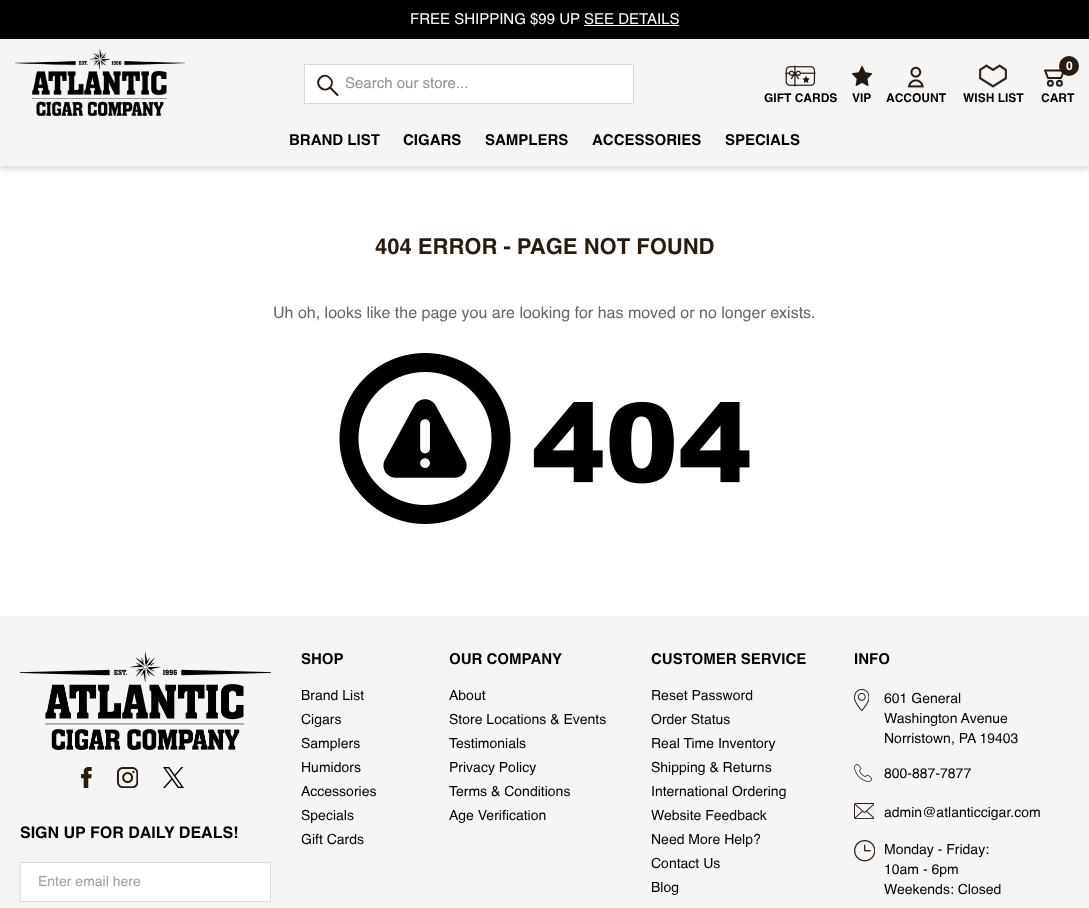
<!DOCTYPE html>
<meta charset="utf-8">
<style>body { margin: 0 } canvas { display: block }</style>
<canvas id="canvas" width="1089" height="908"></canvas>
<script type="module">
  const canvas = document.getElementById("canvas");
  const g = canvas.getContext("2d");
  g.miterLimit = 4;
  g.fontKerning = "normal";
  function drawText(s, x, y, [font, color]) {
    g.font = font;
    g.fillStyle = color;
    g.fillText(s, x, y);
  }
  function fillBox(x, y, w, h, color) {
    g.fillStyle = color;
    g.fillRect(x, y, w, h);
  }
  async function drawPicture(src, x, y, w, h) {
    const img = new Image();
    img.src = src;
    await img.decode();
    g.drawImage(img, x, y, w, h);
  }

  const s1 = ["15px Helvetica", "#FFFFFF"];
  const s2 = ["15px Helvetica", "#919191"];
  const s3 = ["bold 12px Helvetica", "#000000"];
  const s4 = ["bold 12px Helvetica", "#FFFFFF"];
  const s5 = ["bold 15px Helvetica", "#000000"];
  const s6 = ["bold 22px Helvetica", "#291B0D"];
  const s7 = ["16px Helvetica", "#666666"];
  const s8 = ["bold 16px Helvetica", "#000000"];
  const s9 = ["14px Helvetica", "#A0A0A0"];
  const s10 = ["14px Helvetica", "#000000"];

  fillBox(0, 0, 1089, 908, "#FFFFFF");
  g.fillStyle = "rgba(0, 0, 0, 0.16)";
  g.filter = "blur(3px)";
  g.beginPath();
  g.rect(0, 3, 1089, 166);
  g.fill();
  g.filter = "none";
  fillBox(0, 39, 1089, 127, "#F5F5F5");
  fillBox(0, 0, 1089, 39, "#000000");
  drawText("FREE SHIPPING $99 UP SEE DETAILS", 410, 24, s1);
  fillBox(584, 25, 95, 1, "#FFFFFF");
  await drawPicture("pic1.png", 15, 49, 170, 67);
  g.beginPath();
  g.rect(304.5, 64.5, 329, 39);
  g.fill();
  g.strokeStyle = "#D9D9D9";
  g.stroke();
  g.beginPath();
  g.moveTo(320, 78);
  g.bezierCurveTo(326.5, 71.5, 336, 81, 330, 87.5);
  g.bezierCurveTo(323.5, 94, 314, 84, 320, 78);
  g.closePath();
  g.strokeStyle = "#291B0D";
  g.lineWidth = 2;
  g.stroke();
  g.beginPath();
  g.moveTo(330.5, 88);
  g.lineTo(337.5, 95);
  g.lineCap = "round";
  g.stroke();
  drawText("Search our store...", 345, 88, s2);
  await drawPicture("pic2.png", 785, 65, 31, 22);
  drawText("GIFT CARDS", 764, 102, s3);
  await drawPicture("pic3.png", 852, 66, 20, 20);
  drawText("VIP", 852, 102, s3);
  await drawPicture("pic4.png", 908, 66, 16, 22);
  drawText("ACCOUNT", 886, 102, s3);
  await drawPicture("pic5.png", 979, 64, 28, 24);
  drawText("WISH LIST", 963, 102, s3);
  g.beginPath();
  g.moveTo(1069, 66.5);
  g.lineTo(1065.5, 66.5);
  g.lineTo(1061, 78);
  g.lineTo(1048, 78);
  g.lineTo(1045, 70.5);
  g.lineTo(1063.5, 70.5);
  g.lineJoin = "round";
  g.stroke();
  g.fillStyle = "#291B0D";
  g.beginPath();
  g.arc(1069, 66, 10, 0, Math.PI * 2);
  g.fill();
  drawText("0", 1066, 70, s4);
  g.beginPath();
  g.arc(1050.4, 83.2, 2.5, 0, Math.PI * 2);
  g.stroke();
  g.beginPath();
  g.arc(1059.4, 83.2, 2.5, 0, Math.PI * 2);
  g.stroke();
  drawText("CART", 1041, 102, s3);
  drawText("BRAND LIST", 289, 145, s5);
  drawText("CIGARS", 403, 145, s5);
  drawText("SAMPLERS", 485, 145, s5);
  drawText("ACCESSORIES", 592, 145, s5);
  drawText("SPECIALS", 725, 145, s5);
  drawText("404 ERROR - PAGE NOT FOUND", 375, 254, s6);
  drawText("Uh oh, looks like the page you are looking for has moved or no longer exists.", 273, 318, s7);
  await drawPicture("pic6.png", 339, 353, 411, 171);
  fillBox(0, 617, 1089, 291, "#F5F5F5");
  fillBox(0, 616, 1089, 1, "#F2F2F2");
  await drawPicture("pic7.png", 20, 652, 251, 98);
  await drawPicture("pic8.png", 81, 767, 11, 21);
  await drawPicture("pic9.png", 117, 767, 21, 21);
  await drawPicture("pic10.png", 163, 767, 21, 21);
  drawText("SIGN UP FOR DAILY DEALS!", 20, 838, s8);
  g.fillStyle = "#FFFFFF";
  g.beginPath();
  g.rect(20.5, 862.5, 250, 39);
  g.fill();
  g.strokeStyle = "#D9D9D9";
  g.lineWidth = 1;
  g.lineJoin = "miter";
  g.stroke();
  drawText("Enter email here", 38, 886, s9);
  drawText("SHOP", 301, 664, s5);
  drawText("Brand List", 301, 700, s10);
  drawText("Cigars", 301, 724, s10);
  drawText("Samplers", 301, 748, s10);
  drawText("Humidors", 301, 772, s10);
  drawText("Accessories", 301, 796, s10);
  drawText("Specials", 301, 820, s10);
  drawText("Gift Cards", 301, 844, s10);
  drawText("OUR COMPANY", 449, 664, s5);
  drawText("About", 449, 700, s10);
  drawText("Store Locations & Events", 449, 724, s10);
  drawText("Testimonials", 449, 748, s10);
  drawText("Privacy Policy", 449, 772, s10);
  drawText("Terms & Conditions", 449, 796, s10);
  drawText("Age Verification", 449, 820, s10);
  drawText("CUSTOMER SERVICE", 651, 664, s5);
  drawText("Reset Password", 651, 700, s10);
  drawText("Order Status", 651, 724, s10);
  drawText("Real Time Inventory", 651, 748, s10);
  drawText("Shipping & Returns", 651, 772, s10);
  drawText("International Ordering", 651, 796, s10);
  drawText("Website Feedback", 651, 820, s10);
  drawText("Need More Help?", 651, 844, s10);
  drawText("Contact Us", 651, 868, s10);
  drawText("Blog", 651, 892, s10);
  drawText("INFO", 854, 664, s5);
  await drawPicture("pic11.png", 854, 689, 15, 22);
  drawText("601 General", 884, 703, s10);
  drawText("Washington Avenue", 884, 723, s10);
  drawText("Norristown, PA 19403", 884, 743, s10);
  await drawPicture("pic12.png", 854, 764, 18, 18);
  drawText("800-887-7877", 884, 778, s10);
  await drawPicture("pic13.png", 854, 803, 20, 16);
  drawText("admin@atlanticcigar.com", 884, 817, s10);
  await drawPicture("pic14.png", 854, 840, 21, 22);
  drawText("Monday - Friday:", 884, 854, s10);
  drawText("10am - 6pm", 884, 874, s10);
  drawText("Weekends: Closed", 884, 894, s10);
</script>
